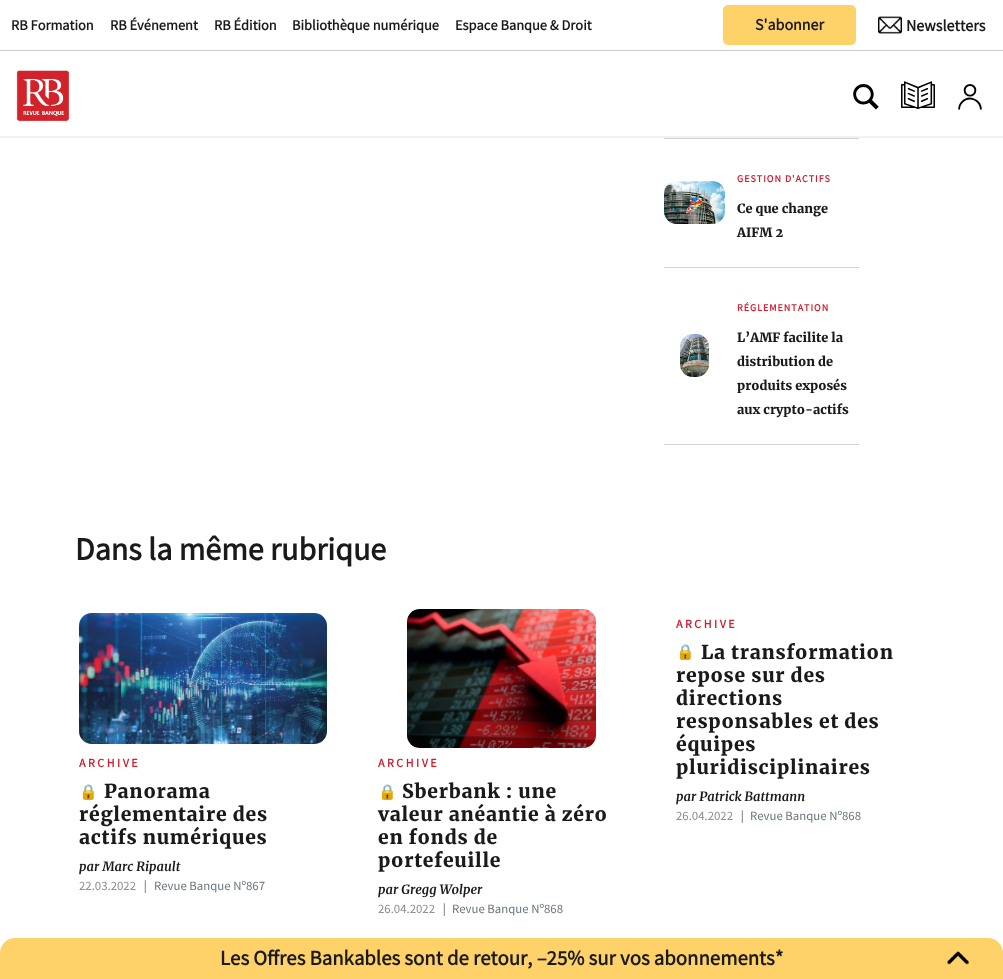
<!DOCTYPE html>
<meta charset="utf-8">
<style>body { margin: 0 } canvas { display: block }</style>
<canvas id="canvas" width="1003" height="979"></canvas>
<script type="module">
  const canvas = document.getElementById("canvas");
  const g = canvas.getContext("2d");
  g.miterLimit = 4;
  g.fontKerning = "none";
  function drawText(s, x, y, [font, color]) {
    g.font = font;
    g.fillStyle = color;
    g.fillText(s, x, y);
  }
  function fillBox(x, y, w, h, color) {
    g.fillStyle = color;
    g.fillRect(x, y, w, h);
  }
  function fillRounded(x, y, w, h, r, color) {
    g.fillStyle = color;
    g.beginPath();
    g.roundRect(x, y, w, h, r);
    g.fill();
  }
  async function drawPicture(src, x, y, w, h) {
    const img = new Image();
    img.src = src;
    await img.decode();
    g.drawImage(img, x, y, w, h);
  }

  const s1 = ["bold 14.4px Source Sans Pro", "#1A1A1A"];
  const s2 = ["bold 16px Source Sans Pro", "#1A1A1A"];
  const s3 = ["bold 10px Source Sans Pro", "#CE1E30"];
  const s4 = ["900 12.75px Merriweather", "#1A1A1A"];
  const s5 = ["bold 32px Source Sans Pro", "#1A1A1A"];
  const s6 = ["bold 12px Source Sans Pro", "#CE1E30"];
  const s7 = ["15px Noto Color Emoji", "#1A1A1A"];
  const s8 = ["900 19.25px Merriweather", "#1A1A1A"];
  const s9 = ["italic bold 12.75px Merriweather", "#1A1A1A"];
  const s10 = ["12.75px Source Sans Pro", "#8C8C8C"];
  const s11 = ["12.75px DejaVu Sans", "#8C8C8C"];
  const s12 = ["12.75px Source Sans Pro", "#6C757D"];
  const s13 = ["bold 20.8px Source Sans Pro", "#1A1A1A"];

  fillBox(0, 0, 1003, 979, "#FFFFFF");
  fillBox(0, 50, 1003, 1, "#CCCCCC");
  drawText("RB Formation", 11, 30, s1);
  drawText("RB Événement", 110, 30, s1);
  drawText("RB Édition", 214, 30, s1);
  drawText("Bibliothèque numérique", 292, 30, s1);
  drawText("Espace Banque & Droit", 455, 30, s1);
  fillRounded(723, 5, 133, 40, 5, "#FFD269");
  drawText("S'abonner", 755, 30, s2);
  await drawPicture("pic1.png", 878, 16, 24, 18);
  drawText("Newsletters", 906, 31, s2);
  await drawPicture("pic2.png", 16, 70, 53, 51);
  await drawPicture("pic3.png", 853, 84, 26, 26);
  await drawPicture("pic4.png", 901, 81, 34, 28);
  await drawPicture("pic5.png", 958, 84, 24, 26);
  fillBox(0, 136, 1003, 2, "#F2F2F2");
  fillBox(664, 138, 195, 1, "#D3D3D3");
  fillBox(664, 267, 195, 1, "#D3D3D3");
  await drawPicture("pic6.png", 664, 181, 61, 43);
  g.letterSpacing = "1px";
  drawText("GESTION D'ACTIFS", 737, 182, s3);
  g.letterSpacing = "0px";
  drawText("Ce que change", 737, 213, s4);
  drawText("AIFM 2", 737, 237, s4);
  fillBox(664, 444, 195, 1, "#D3D3D3");
  await drawPicture("pic7.png", 680, 334, 29, 43);
  g.letterSpacing = "1px";
  drawText("RÉGLEMENTATION", 737, 311, s3);
  g.letterSpacing = "0px";
  drawText("L’AMF facilite la", 737, 342, s4);
  drawText("distribution de", 737, 366, s4);
  drawText("produits exposés", 737, 390, s4);
  drawText("aux crypto-actifs", 737, 414, s4);
  drawText("Dans la même rubrique", 75, 560, s5);
  await drawPicture("pic8.png", 79, 613, 248, 131);
  g.letterSpacing = "2.5px";
  drawText("ARCHIVE", 79, 767, s6);
  g.letterSpacing = "0.75px";
  drawText("🔒", 79, 797, s7);
  drawText("Panorama", 104, 798, s8);
  drawText("réglementaire des", 79, 821, s8);
  drawText("actifs numériques", 79, 844, s8);
  g.letterSpacing = "0px";
  drawText("par Marc Ripault", 79, 871, s9);
  drawText("22.03.2022", 79, 890, s10);
  drawText("❘", 140, 890, s11);
  drawText("Revue Banque Nº867", 154, 890, s12);
  await drawPicture("pic9.png", 407, 609, 189, 139);
  g.letterSpacing = "2.5px";
  drawText("ARCHIVE", 378, 767, s6);
  g.save();
  g.beginPath();
  g.rect(378, 780, 247, 100);
  g.clip();
  g.letterSpacing = "0.75px";
  drawText("🔒", 378, 797, s7);
  g.restore();
  g.letterSpacing = "0.75px";
  drawText("Sberbank : une", 402, 798, s8);
  drawText("valeur anéantie à zéro", 378, 821, s8);
  drawText("en fonds de", 378, 844, s8);
  drawText("portefeuille", 378, 867, s8);
  g.letterSpacing = "0px";
  drawText("par Gregg Wolper", 378, 894, s9);
  drawText("26.04.2022", 378, 913, s10);
  drawText("❘", 439, 913, s11);
  drawText("Revue Banque Nº868", 452, 913, s12);
  g.letterSpacing = "2.5px";
  drawText("ARCHIVE", 676, 628, s6);
  g.letterSpacing = "0.75px";
  drawText("🔒", 676, 657, s7);
  drawText("La transformation", 701, 659, s8);
  drawText("repose sur des", 676, 682, s8);
  drawText("directions", 676, 705, s8);
  drawText("responsables et des", 676, 728, s8);
  drawText("équipes", 676, 751, s8);
  drawText("pluridisciplinaires", 676, 774, s8);
  g.letterSpacing = "0px";
  drawText("par Patrick Battmann", 676, 801, s9);
  drawText("26.04.2022", 676, 820, s10);
  drawText("❘", 737, 820, s11);
  drawText("Revue Banque Nº868", 750, 820, s12);
  g.fillStyle = "#FFD269";
  g.beginPath();
  g.roundRect(0, 938, 1003, 41, [15, 15, 0, 0]);
  g.fill();
  drawText("Les Offres Bankables sont de retour, –25% sur vos abonnements*", 220, 965, s13);
  await drawPicture("pic10.png", 947, 951, 22, 14);
</script>
